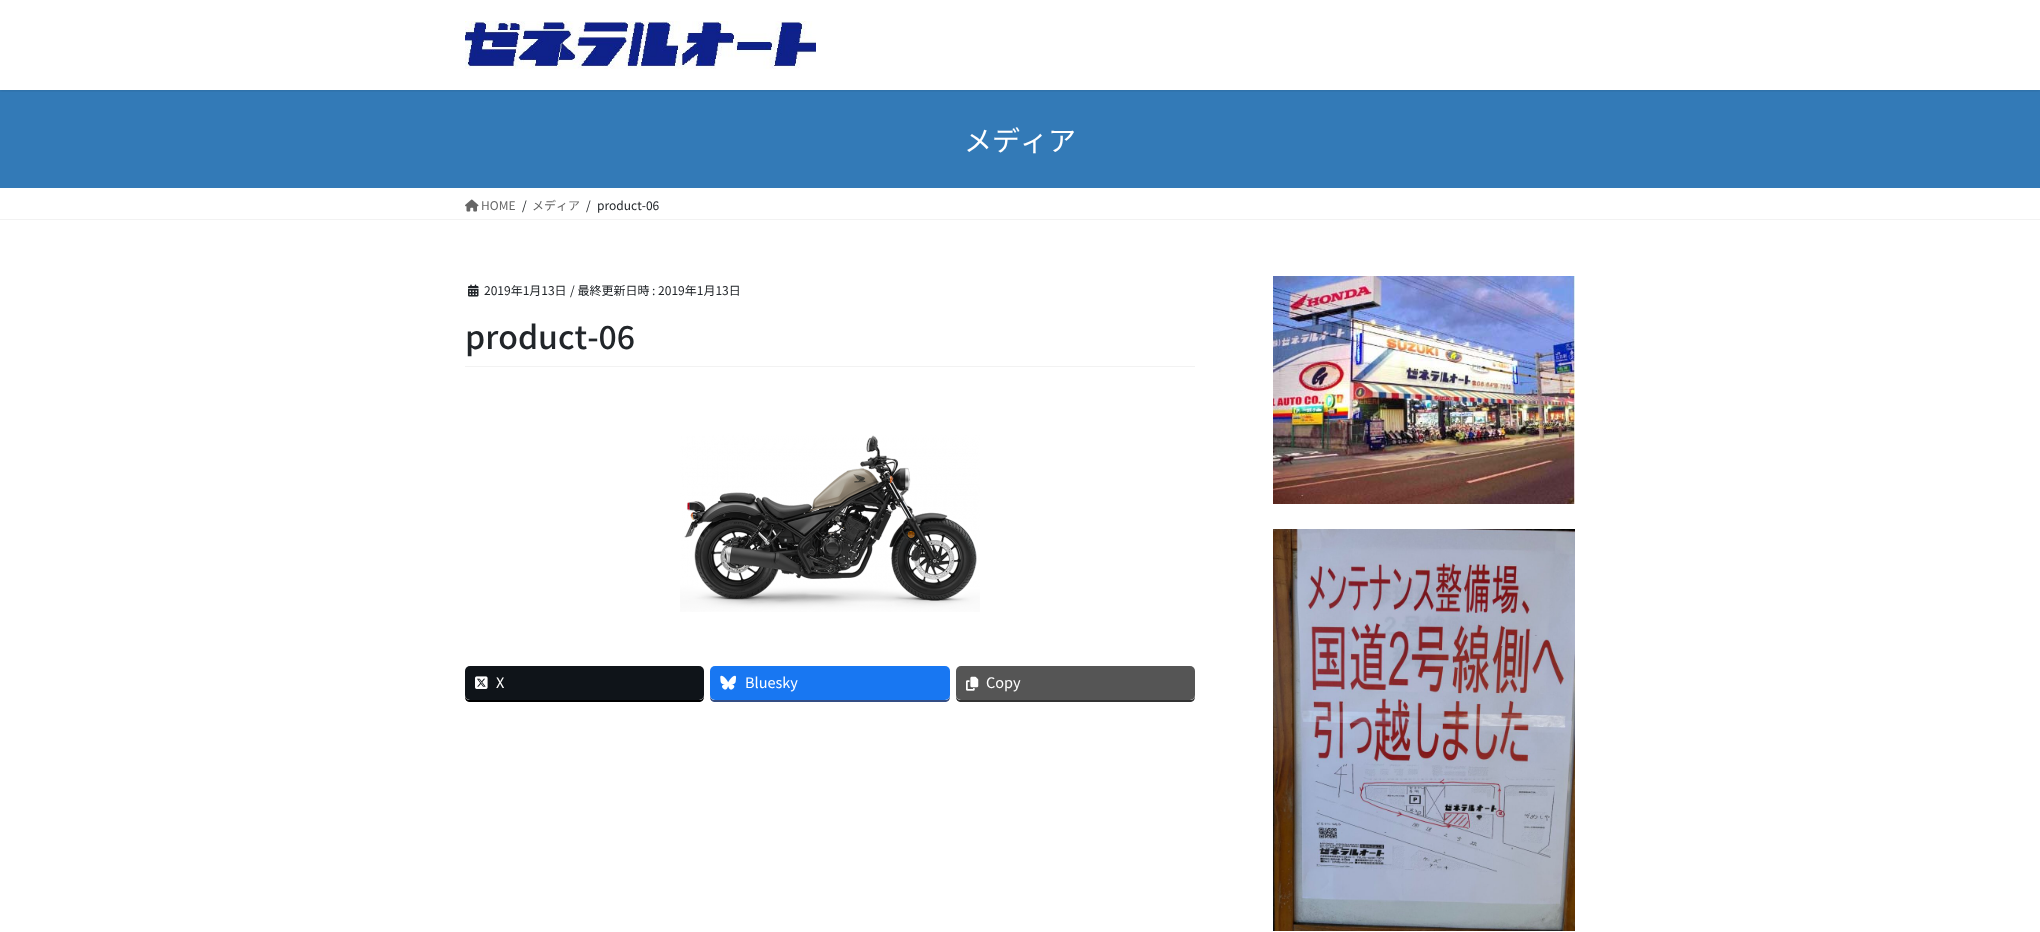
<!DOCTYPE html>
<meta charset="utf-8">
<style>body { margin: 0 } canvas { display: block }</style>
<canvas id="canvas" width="2040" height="932"></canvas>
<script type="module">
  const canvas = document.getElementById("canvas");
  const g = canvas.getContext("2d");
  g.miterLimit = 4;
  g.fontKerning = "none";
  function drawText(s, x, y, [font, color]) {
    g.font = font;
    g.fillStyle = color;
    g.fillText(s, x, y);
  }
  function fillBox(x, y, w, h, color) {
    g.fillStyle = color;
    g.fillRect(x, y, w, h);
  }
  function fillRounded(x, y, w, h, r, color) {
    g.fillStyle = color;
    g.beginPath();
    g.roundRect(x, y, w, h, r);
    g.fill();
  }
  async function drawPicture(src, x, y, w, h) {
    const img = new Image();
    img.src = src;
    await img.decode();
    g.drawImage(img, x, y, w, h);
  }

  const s1 = ["28px Noto Sans JP", "#FFFFFF"];
  const s2 = ["12px Noto Sans JP", "#666666"];
  const s3 = ["12px Noto Sans JP", "#212529"];
  const s4 = ["500 32px Noto Sans JP", "#212529"];
  const s5 = ["14.5px Noto Sans JP", "#FFFFFF"];

  fillBox(0, 0, 2040, 932, "#FFFFFF");
  fillBox(0, 90, 2040, 98, "#337AB7");
  g.save();
  g.beginPath();
  g.rect(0, 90, 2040, 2);
  g.clip();
  g.fillStyle = "rgba(0, 0, 0, 0.1)";
  g.filter = "blur(1.5px)";
  g.beginPath();
  g.rect(0, 1, 2040, 90);
  g.fill();
  g.filter = "none";
  g.restore();
  await drawPicture("pic1.png", 465, 21, 351, 48);
  drawText("メディア", 964, 151, s1);
  fillBox(0, 219, 2040, 1, "#F2F2F2");
  await drawPicture("pic2.png", 465, 199, 14, 13);
  drawText("HOME", 481, 210, s2);
  drawText("/", 522, 210, s3);
  drawText("メディア", 532, 210, s2);
  drawText("/", 586, 210, s3);
  drawText("product-06", 597, 210, s3);
  fillBox(465, 366, 730, 1, "#F2F2F2");
  await drawPicture("pic3.png", 468, 284, 11, 13);
  drawText("2019年1月13日", 484, 295, s3);
  drawText("/ 最終更新日時 : 2019年1月13日", 570, 295, s3);
  drawText("product-06", 465, 349, s4);
  await drawPicture("pic4.png", 680, 435, 300, 177);
  g.fillStyle = "#000000";
  g.beginPath();
  g.moveTo(465, 695);
  g.bezierCurveTo(465, 698, 465, 701, 469, 702);
  g.lineTo(700, 702);
  g.bezierCurveTo(704, 701, 704, 698, 704, 695);
  g.bezierCurveTo(704, 698, 702, 700, 699, 700);
  g.lineTo(470, 700);
  g.bezierCurveTo(467, 700, 465, 698, 465, 695);
  g.closePath();
  g.fill();
  fillRounded(465, 666, 239, 34, 5, "#0F1419");
  await drawPicture("pic5.png", 475, 676, 13, 13);
  drawText("X", 496, 688, s5);
  g.fillStyle = "#344E84";
  g.beginPath();
  g.moveTo(710, 695);
  g.bezierCurveTo(710, 698, 710, 701, 714, 702);
  g.lineTo(946, 702);
  g.bezierCurveTo(950, 701, 950, 698, 950, 695);
  g.bezierCurveTo(950, 698, 948, 700, 945, 700);
  g.lineTo(715, 700);
  g.bezierCurveTo(712, 700, 710, 698, 710, 695);
  g.closePath();
  g.fill();
  fillRounded(710, 666, 240, 34, 5, "#1877F2");
  await drawPicture("pic6.png", 720, 675, 16, 15);
  drawText("Bluesky", 745, 688, s5);
  g.fillStyle = "#333333";
  g.beginPath();
  g.moveTo(956, 695);
  g.bezierCurveTo(956, 698, 956, 701, 960, 702);
  g.lineTo(1191, 702);
  g.bezierCurveTo(1195, 701, 1195, 698, 1195, 695);
  g.bezierCurveTo(1195, 698, 1193, 700, 1190, 700);
  g.lineTo(961, 700);
  g.bezierCurveTo(958, 700, 956, 698, 956, 695);
  g.closePath();
  g.fill();
  fillRounded(956, 666, 239, 34, 5, "#555555");
  await drawPicture("pic7.png", 966, 676, 13, 15);
  drawText("Copy", 986, 688, s5);
  await drawPicture("pic8.png", 1273, 276, 302, 228);
  await drawPicture("pic9.png", 1273, 529, 302, 402);
</script>
